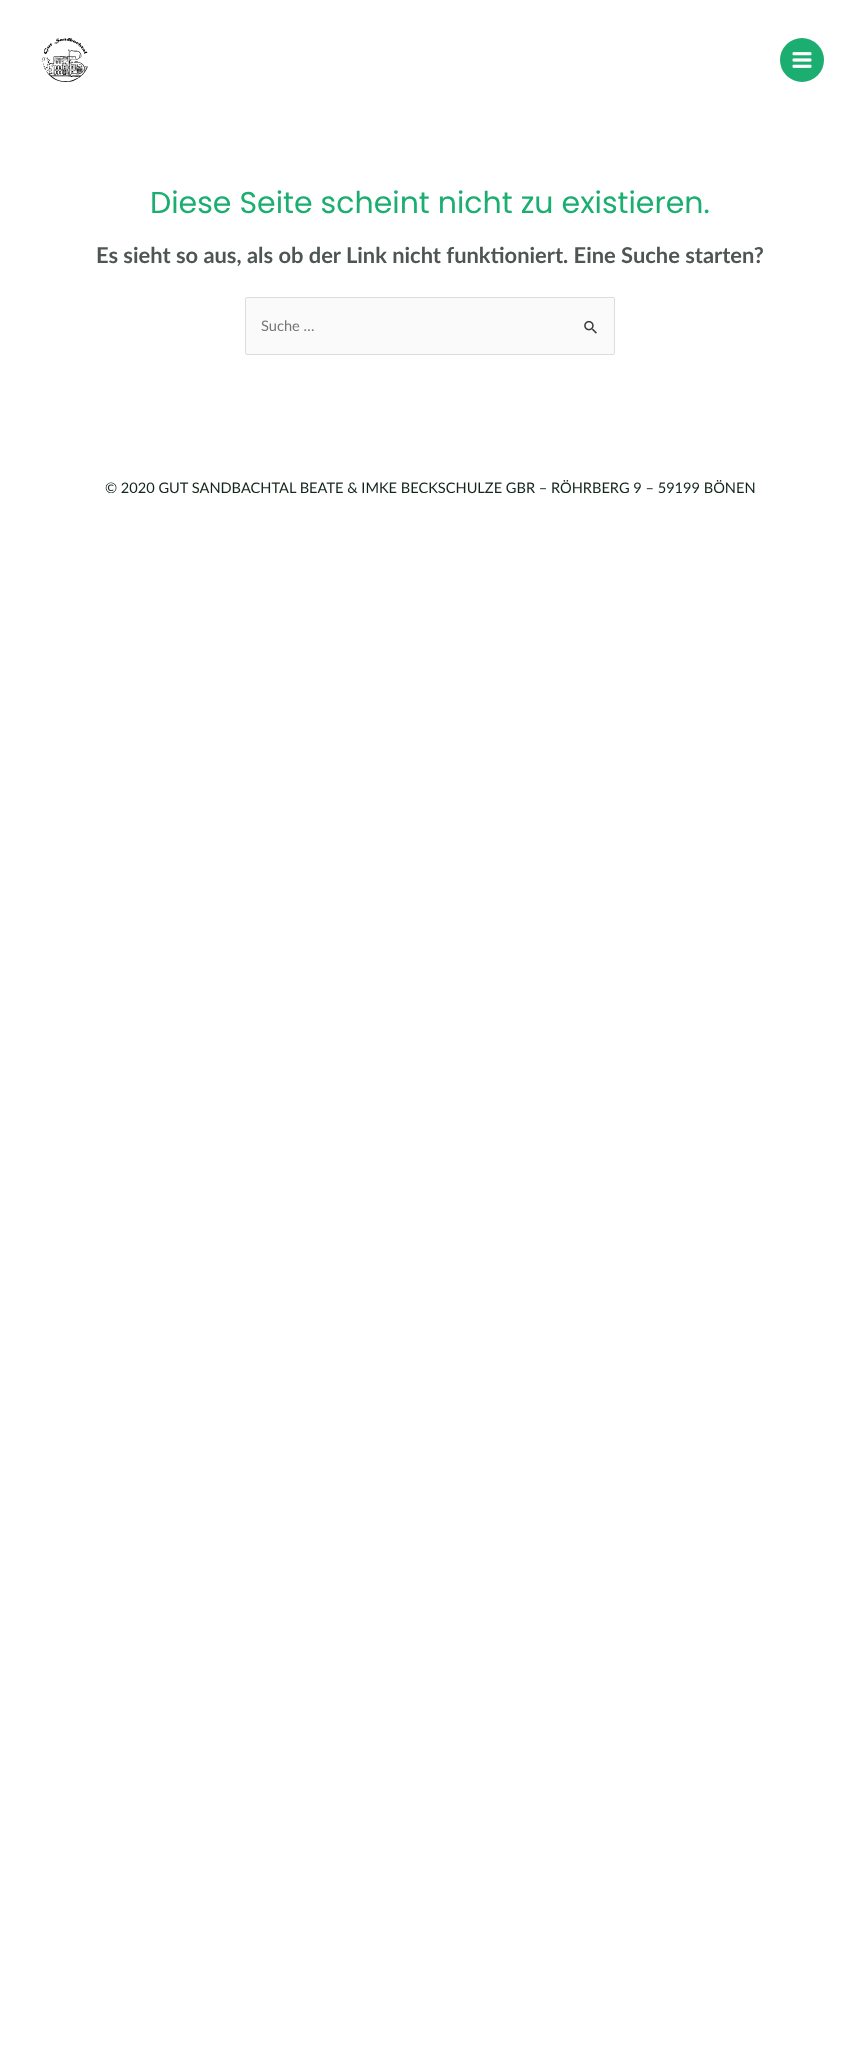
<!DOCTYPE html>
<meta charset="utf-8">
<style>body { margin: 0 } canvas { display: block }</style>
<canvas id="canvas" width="859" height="2072"></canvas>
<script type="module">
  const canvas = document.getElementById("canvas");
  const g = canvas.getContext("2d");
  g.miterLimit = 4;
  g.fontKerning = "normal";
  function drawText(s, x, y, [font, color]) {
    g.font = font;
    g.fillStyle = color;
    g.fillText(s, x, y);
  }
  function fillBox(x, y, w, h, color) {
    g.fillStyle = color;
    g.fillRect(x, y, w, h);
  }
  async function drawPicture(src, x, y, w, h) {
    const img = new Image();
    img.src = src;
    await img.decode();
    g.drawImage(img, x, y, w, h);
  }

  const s1 = ["30px Poppins", "#1BAE70"];
  const s2 = ["bold 21.9px Lato", "#4E5652"];
  const s3 = ["14.6px Lato", "#757575"];
  const s4 = ["14.6px Lato", "#14261C"];

  fillBox(0, 0, 859, 2072, "#FFFFFF");
  await drawPicture("pic1.png", 42, 38, 46, 44);
  g.fillStyle = "#1BAE70";
  g.beginPath();
  g.arc(802, 60, 22, 0, Math.PI * 2);
  g.fill();
  await drawPicture("pic2.png", 792, 52, 20, 16);
  drawText("Diese Seite scheint nicht zu existieren.", 150, 213, s1);
  drawText("Es sieht so aus, als ob der Link nicht funktioniert. Eine Suche starten?", 96, 263, s2);
  g.fillStyle = "#FAFAFA";
  g.beginPath();
  g.roundRect(245.5, 297.5, 369, 57, 1.5);
  g.fill();
  g.strokeStyle = "#DDDDDD";
  g.stroke();
  drawText("Suche …", 261, 331, s3);
  await drawPicture("pic3.png", 584, 320, 13, 14);
  drawText("© 2020 GUT SANDBACHTAL BEATE & IMKE BECKSCHULZE GBR – RÖHRBERG 9 – 59199 BÖNEN", 105, 493, s4);
</script>
